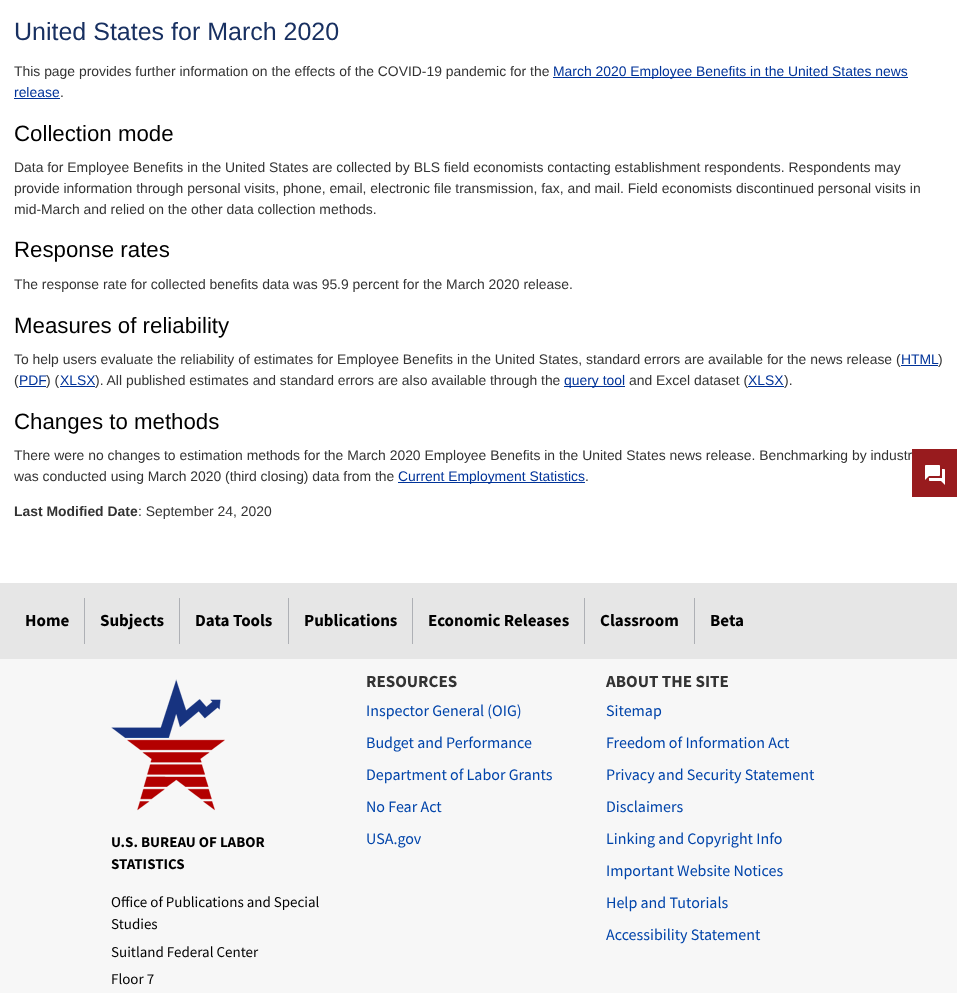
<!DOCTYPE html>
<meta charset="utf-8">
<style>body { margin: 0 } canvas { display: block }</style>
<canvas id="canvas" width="957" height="993"></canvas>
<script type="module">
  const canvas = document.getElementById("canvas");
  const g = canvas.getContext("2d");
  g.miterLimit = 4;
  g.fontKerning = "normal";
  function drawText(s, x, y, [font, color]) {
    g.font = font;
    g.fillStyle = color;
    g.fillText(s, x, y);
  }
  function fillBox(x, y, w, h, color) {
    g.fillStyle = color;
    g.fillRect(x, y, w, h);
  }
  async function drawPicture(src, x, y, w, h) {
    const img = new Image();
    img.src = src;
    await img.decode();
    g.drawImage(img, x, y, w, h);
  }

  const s1 = ["25px Liberation Sans", "#183061"];
  const s2 = ["13.92px Liberation Sans", "#333333"];
  const s3 = ["13.92px Liberation Sans", "#003399"];
  const s4 = ["22.25px Liberation Sans", "#000000"];
  const s5 = ["bold 13.92px Liberation Sans", "#333333"];
  const s6 = ["bold 17px Source Sans Pro", "#000000"];
  const s7 = ["bold 15px Source Sans Pro", "#000000"];
  const s8 = ["15px Source Sans Pro", "#000000"];
  const s9 = ["bold 17px Source Sans Pro", "#333333"];
  const s10 = ["16px Source Sans Pro", "#0044AA"];

  fillBox(0, 0, 957, 993, "#FFFFFF");
  drawText("United States for March 2020", 14, 40, s1);
  drawText("This page provides further information on the effects of the COVID-19 pandemic for the", 14, 76, s2);
  fillBox(553, 77, 355, 1, "#003399");
  drawText("March 2020 Employee Benefits in the United States news", 553, 76, s3);
  drawText("release", 14, 97, s3);
  fillBox(14, 98, 46, 1, "#003399");
  drawText(".", 60, 97, s2);
  drawText("Collection mode", 14, 141, s4);
  drawText("Data for Employee Benefits in the United States are collected by BLS field economists contacting establishment respondents. Respondents may", 14, 172, s2);
  drawText("provide information through personal visits, phone, email, electronic file transmission, fax, and mail. Field economists discontinued personal visits in", 14, 193, s2);
  drawText("mid-March and relied on the other data collection methods.", 14, 214, s2);
  drawText("Response rates", 14, 257, s4);
  drawText("The response rate for collected benefits data was 95.9 percent for the March 2020 release.", 14, 289, s2);
  drawText("Measures of reliability", 14, 333, s4);
  drawText("To help users evaluate the reliability of estimates for Employee Benefits in the United States, standard errors are available for the news release (", 14, 364, s2);
  drawText("HTML", 901, 364, s3);
  fillBox(901, 365, 37, 1, "#003399");
  drawText(")", 938, 364, s2);
  drawText("(", 14, 385, s2);
  drawText("PDF", 19, 385, s3);
  fillBox(19, 386, 27, 1, "#003399");
  drawText(") (", 46, 385, s2);
  drawText("XLSX", 60, 385, s3);
  fillBox(60, 386, 35, 1, "#003399");
  drawText("). All published estimates and standard errors are also available through the", 95, 385, s2);
  fillBox(564, 386, 61, 1, "#003399");
  drawText("query tool", 564, 385, s3);
  drawText("and Excel dataset (", 629, 385, s2);
  drawText("XLSX", 748, 385, s3);
  fillBox(748, 386, 36, 1, "#003399");
  drawText(").", 784, 385, s2);
  drawText("Changes to methods", 14, 429, s4);
  drawText("There were no changes to estimation methods for the March 2020 Employee Benefits in the United States news release. Benchmarking by industr", 14, 460, s2);
  drawText("was conducted using March 2020 (third closing) data from the", 14, 481, s2);
  fillBox(398, 482, 187, 1, "#003399");
  drawText("Current Employment Statistics", 398, 481, s3);
  drawText(".", 585, 481, s2);
  drawText("Last Modified Date", 14, 516, s5);
  drawText(": September 24, 2020", 138, 516, s2);
  fillBox(912, 449, 45, 48, "#981B1E");
  await drawPicture("pic1.png", 925, 465, 20, 20);
  fillBox(0, 583, 957, 76, "#E6E6E6");
  drawText("Home", 25, 626, s6);
  fillBox(84, 598, 1, 46, "#AEB0B5");
  drawText("Subjects", 100, 626, s6);
  fillBox(179, 598, 1, 46, "#AEB0B5");
  drawText("Data Tools", 195, 626, s6);
  fillBox(288, 598, 1, 46, "#AEB0B5");
  drawText("Publications", 304, 626, s6);
  fillBox(412, 598, 1, 46, "#AEB0B5");
  drawText("Economic Releases", 428, 626, s6);
  fillBox(584, 598, 1, 46, "#AEB0B5");
  drawText("Classroom", 600, 626, s6);
  fillBox(694, 598, 1, 46, "#AEB0B5");
  drawText("Beta", 710, 626, s6);
  fillBox(0, 659, 957, 334, "#F7F7F7");
  await drawPicture("pic2.png", 111, 679, 114, 132);
  drawText("U.S. BUREAU OF LABOR", 111, 847, s7);
  drawText("STATISTICS", 111, 869, s7);
  drawText("Office of Publications and Special", 111, 907, s8);
  drawText("Studies", 111, 929, s8);
  drawText("Suitland Federal Center", 111, 957, s8);
  drawText("Floor 7", 111, 984, s8);
  drawText("RESOURCES", 366, 687, s9);
  drawText("Inspector General (OIG)", 366, 716, s10);
  drawText("Budget and Performance", 366, 748, s10);
  drawText("Department of Labor Grants", 366, 780, s10);
  drawText("No Fear Act", 366, 812, s10);
  drawText("USA.gov", 366, 844, s10);
  drawText("ABOUT THE SITE", 606, 687, s9);
  drawText("Sitemap", 606, 716, s10);
  drawText("Freedom of Information Act", 606, 748, s10);
  drawText("Privacy and Security Statement", 606, 780, s10);
  drawText("Disclaimers", 606, 812, s10);
  drawText("Linking and Copyright Info", 606, 844, s10);
  drawText("Important Website Notices", 606, 876, s10);
  drawText("Help and Tutorials", 606, 908, s10);
  drawText("Accessibility Statement", 606, 940, s10);
</script>
